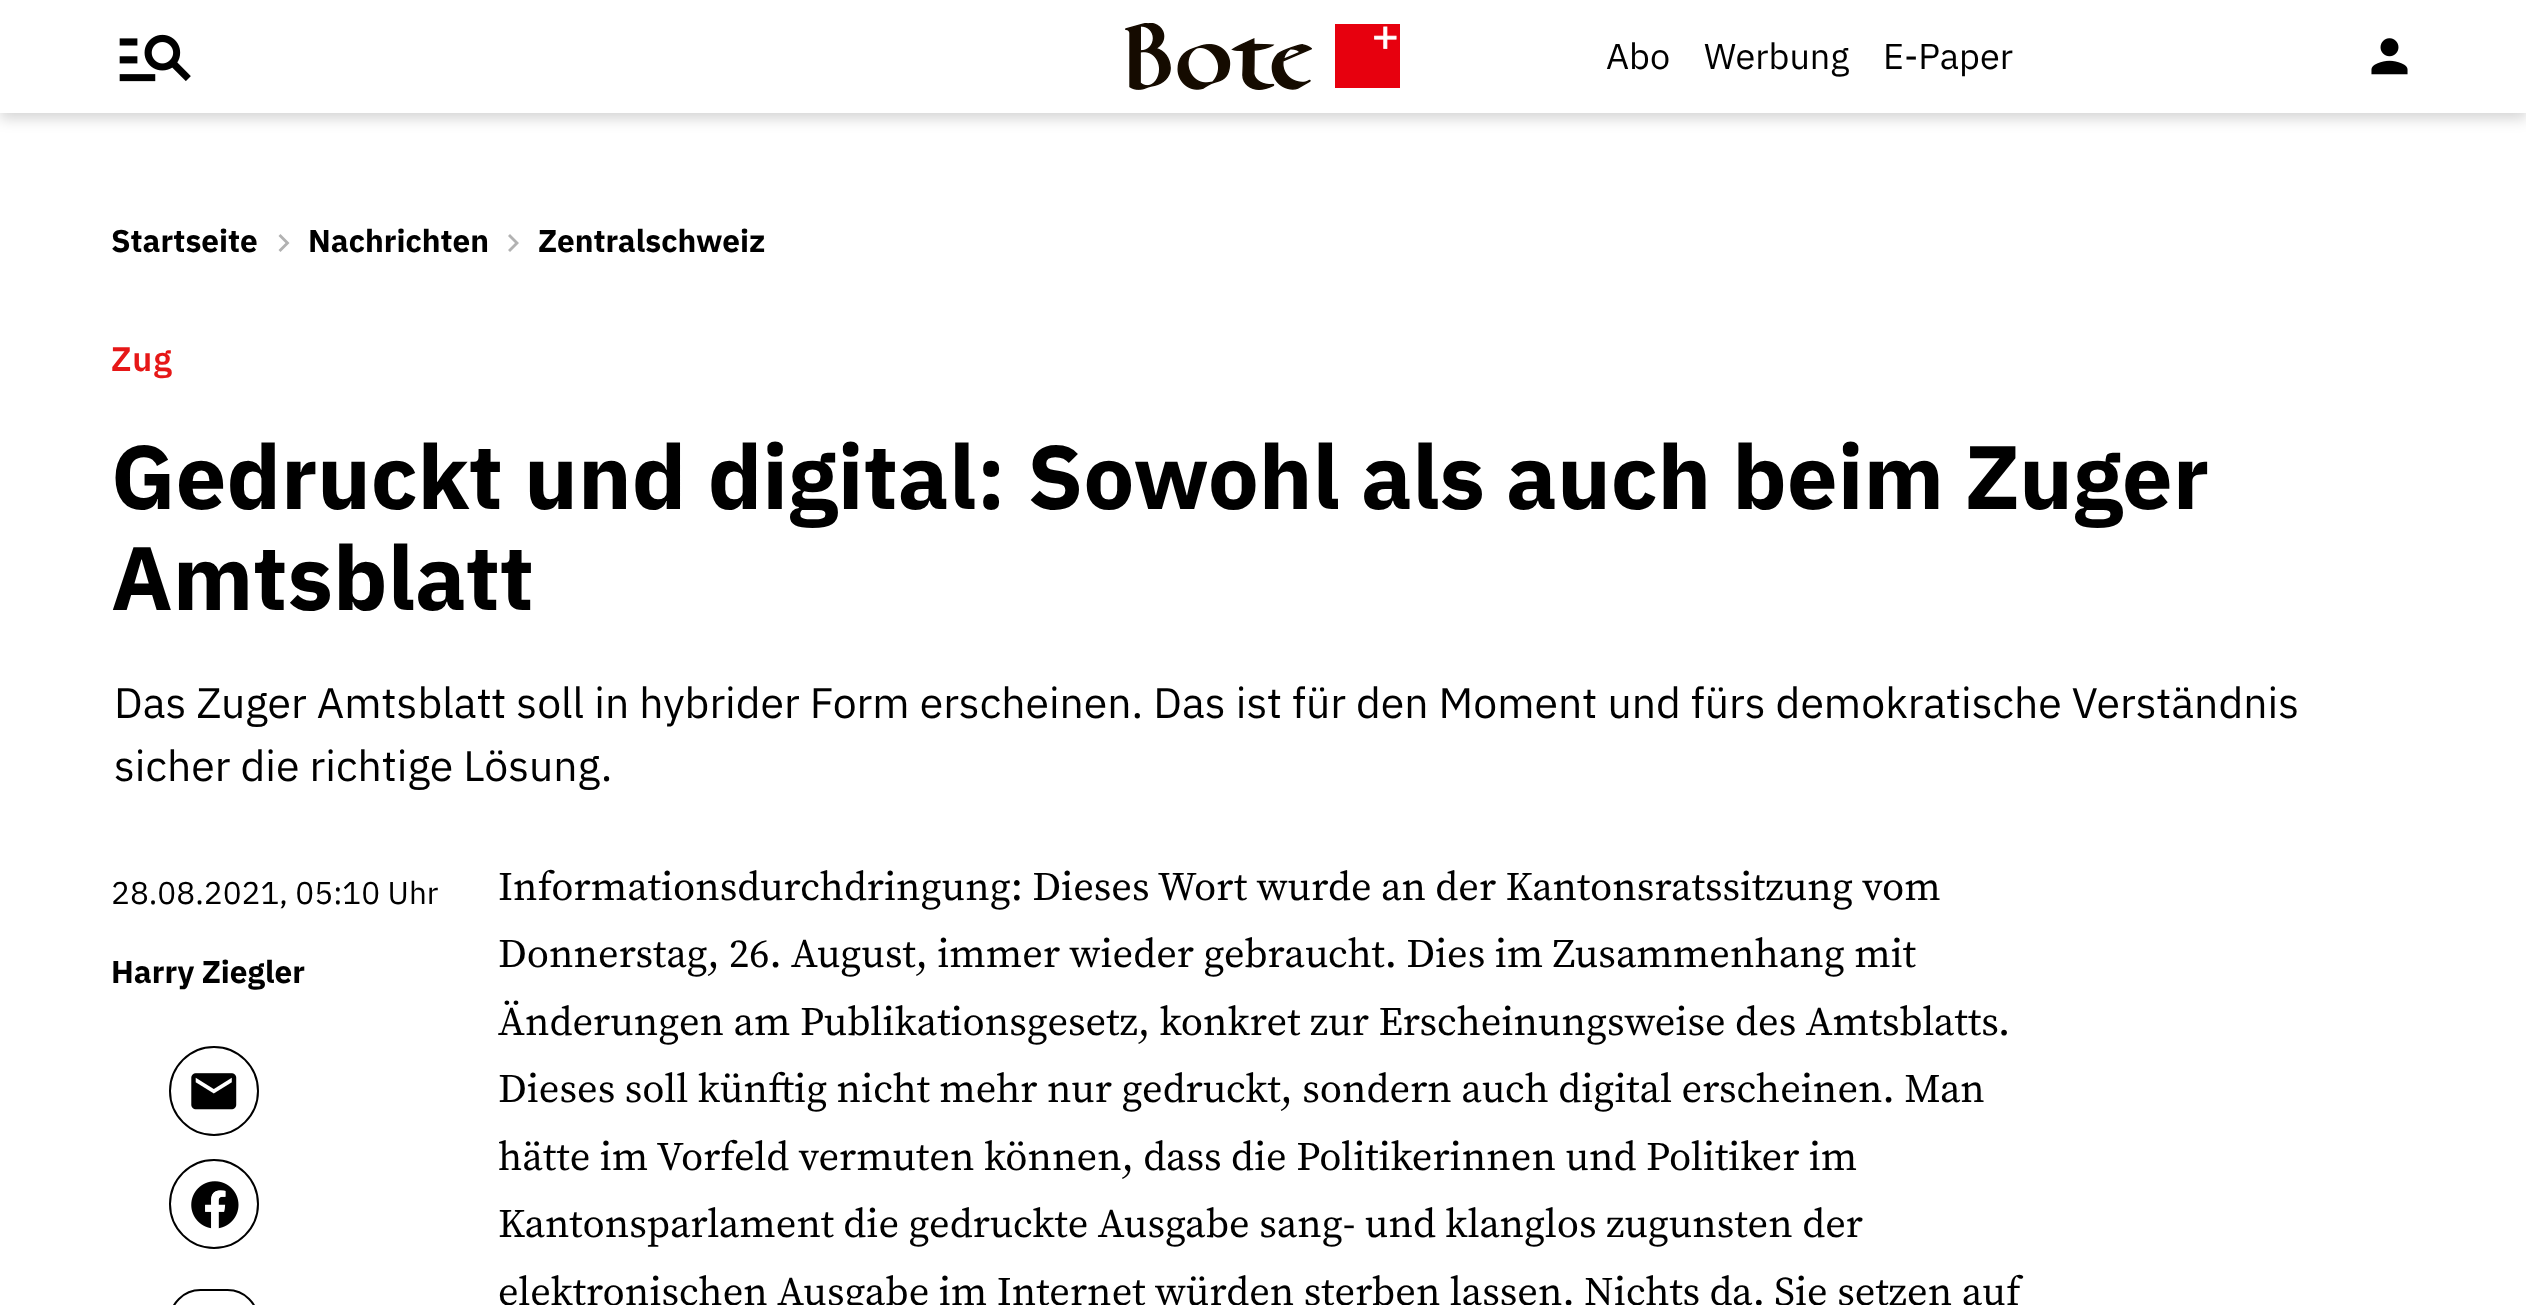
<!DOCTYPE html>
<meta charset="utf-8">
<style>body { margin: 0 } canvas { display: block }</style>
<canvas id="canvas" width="2526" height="1305"></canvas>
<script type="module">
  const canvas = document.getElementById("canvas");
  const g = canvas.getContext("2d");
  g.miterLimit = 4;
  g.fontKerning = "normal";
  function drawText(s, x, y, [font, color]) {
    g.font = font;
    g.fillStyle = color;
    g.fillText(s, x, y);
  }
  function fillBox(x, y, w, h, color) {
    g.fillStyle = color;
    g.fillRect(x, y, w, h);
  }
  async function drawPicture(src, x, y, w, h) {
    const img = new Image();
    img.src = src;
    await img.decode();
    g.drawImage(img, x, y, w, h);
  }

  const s1 = ["36px IBM Plex Sans", "#000000"];
  const s2 = ["bold 31.5px IBM Plex Sans", "#000000"];
  const s3 = ["600 34px IBM Plex Sans", "#E61717"];
  const s4 = ["bold 90px IBM Plex Sans", "#000000"];
  const s5 = ["42.75px IBM Plex Sans", "#000000"];
  const s6 = ["31.5px IBM Plex Sans", "#000000"];
  const s7 = ["40.5px Source Serif Pro", "#000000"];

  fillBox(0, 0, 2526, 1305, "#FFFFFF");
  g.fillStyle = "rgba(0, 0, 0, 0.16)";
  g.filter = "blur(7px)";
  g.beginPath();
  g.rect(0, 7, 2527, 112);
  g.fill();
  g.filter = "none";
  fillBox(0, 0, 2526, 113, "#FFFFFF");
  await drawPicture("pic1.png", 119, 34, 72, 48);
  await drawPicture("pic2.png", 1125, 23, 275, 67);
  drawText("Abo", 1606, 69, s1);
  drawText("Werbung", 1704, 69, s1);
  drawText("E-Paper", 1883, 69, s1);
  await drawPicture("pic3.png", 2371, 38, 37, 37);
  drawText("Startseite", 111, 252, s2);
  g.fillStyle = "#B2B2B2";
  g.beginPath();
  g.moveTo(280.5, 234);
  g.lineTo(289.5, 243);
  g.lineTo(280.5, 252);
  g.lineTo(278.5, 250);
  g.lineTo(285.5, 243);
  g.lineTo(278.5, 236);
  g.closePath();
  g.fill();
  drawText("Nachrichten", 308, 252, s2);
  g.fillStyle = "#B2B2B2";
  g.beginPath();
  g.moveTo(510, 234);
  g.lineTo(519, 243);
  g.lineTo(510, 252);
  g.lineTo(508, 250);
  g.lineTo(515, 243);
  g.lineTo(508, 236);
  g.closePath();
  g.fill();
  drawText("Zentralschweiz", 538, 252, s2);
  g.letterSpacing = "1px";
  drawText("Zug", 111, 371, s3);
  g.letterSpacing = "0px";
  drawText("Gedruckt und digital: Sowohl als auch beim Zuger", 111, 509, s4);
  drawText("Amtsblatt", 111, 610, s4);
  drawText("Das Zuger Amtsblatt soll in hybrider Form erscheinen. Das ist für den Moment und fürs demokratische Verständnis", 114, 718, s5);
  drawText("sicher die richtige Lösung.", 114, 781, s5);
  drawText("28.08.2021, 05:10 Uhr", 111, 904, s6);
  drawText("Harry Ziegler", 111, 983, s2);
  g.beginPath();
  g.arc(214, 1091, 44, 0, Math.PI * 2);
  g.strokeStyle = "#000000";
  g.lineWidth = 2;
  g.stroke();
  await drawPicture("pic4.png", 191, 1073, 46, 37);
  g.beginPath();
  g.arc(214, 1204, 44, 0, Math.PI * 2);
  g.stroke();
  await drawPicture("pic5.png", 191, 1181, 48, 48);
  g.beginPath();
  g.roundRect(170, 1290, 88, 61, 44);
  g.stroke();
  drawText("Informationsdurchdringung: Dieses Wort wurde an der Kantonsratssitzung vom", 498, 900, s7);
  drawText("Donnerstag, 26. August, immer wieder gebraucht. Dies im Zusammenhang mit", 498, 967, s7);
  drawText("Änderungen am Publikationsgesetz, konkret zur Erscheinungsweise des Amtsblatts.", 498, 1035, s7);
  drawText("Dieses soll künftig nicht mehr nur gedruckt, sondern auch digital erscheinen. Man", 498, 1102, s7);
  drawText("hätte im Vorfeld vermuten können, dass die Politikerinnen und Politiker im", 498, 1170, s7);
  drawText("Kantonsparlament die gedruckte Ausgabe sang- und klanglos zugunsten der", 498, 1237, s7);
  drawText("elektronischen Ausgabe im Internet würden sterben lassen. Nichts da. Sie setzen auf", 498, 1305, s7);
</script>
